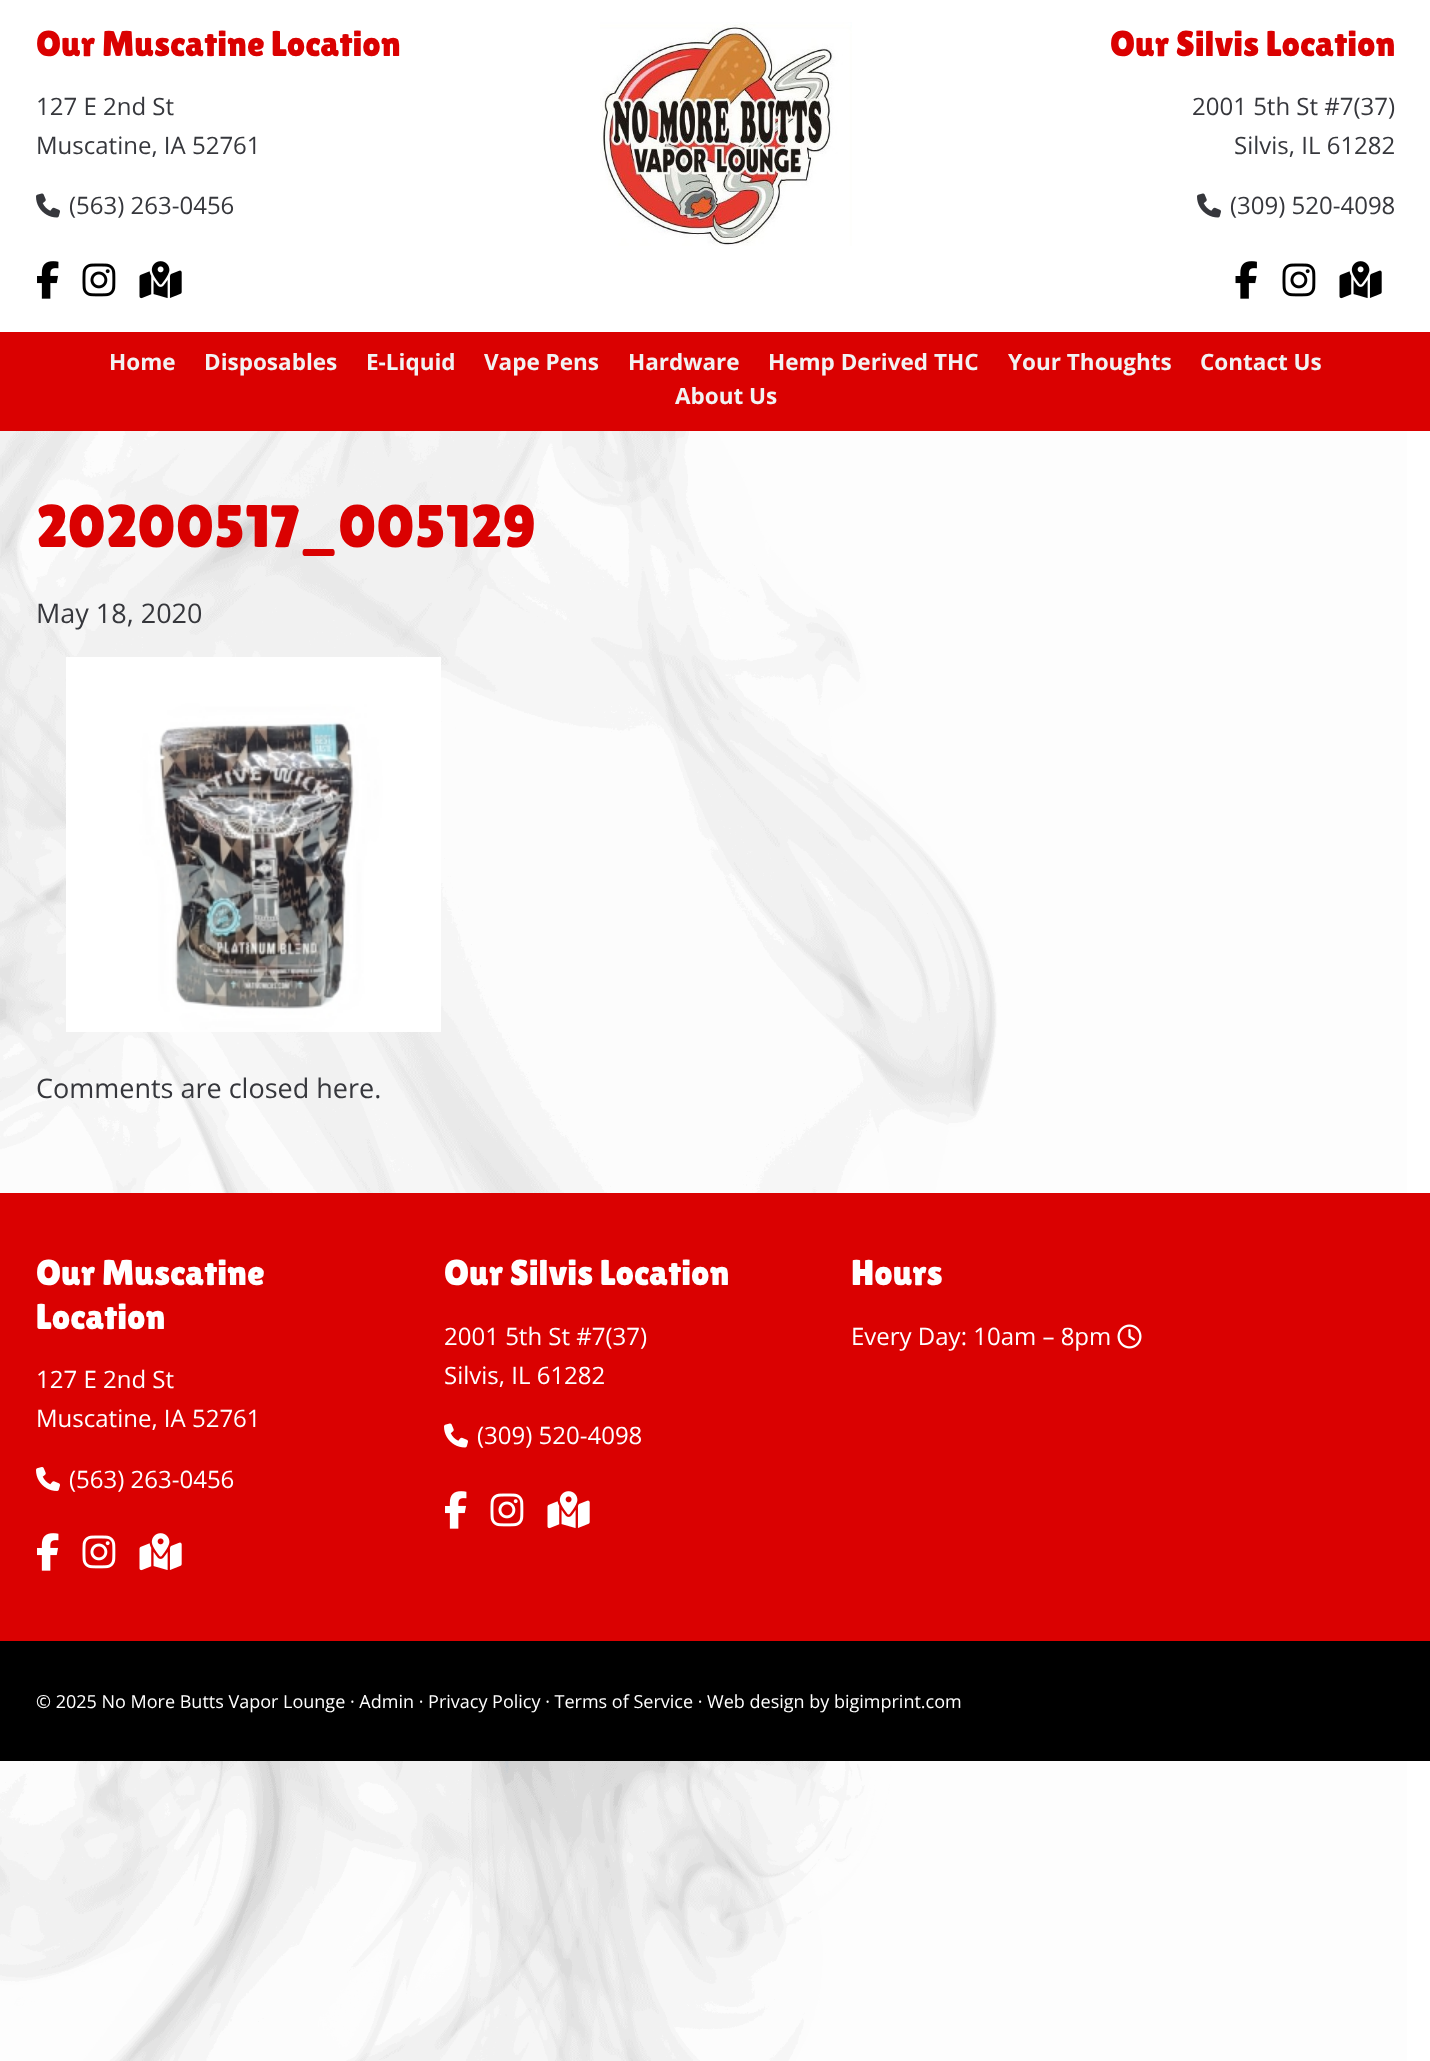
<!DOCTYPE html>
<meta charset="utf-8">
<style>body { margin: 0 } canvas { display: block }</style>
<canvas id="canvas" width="1430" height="2061"></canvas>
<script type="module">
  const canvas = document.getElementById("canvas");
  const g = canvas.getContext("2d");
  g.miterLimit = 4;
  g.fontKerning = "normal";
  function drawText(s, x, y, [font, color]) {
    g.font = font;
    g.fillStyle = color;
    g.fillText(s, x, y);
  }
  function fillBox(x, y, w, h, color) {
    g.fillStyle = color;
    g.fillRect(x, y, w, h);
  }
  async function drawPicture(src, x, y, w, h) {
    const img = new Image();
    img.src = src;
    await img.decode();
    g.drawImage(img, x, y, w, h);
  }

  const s1 = ["36px Lilita One", "#DA0101"];
  const s2 = ["24px Open Sans", "#36373C"];
  const s3 = ["bold 22.5px Open Sans", "#F2F2F2"];
  const s4 = ["60px Lilita One", "#DA0101"];
  const s5 = ["27px Open Sans", "#36373C"];
  const s6 = ["36px Lilita One", "#FFFFFF"];
  const s7 = ["24px Open Sans", "#FFFFFF"];
  const s8 = ["18px Open Sans", "#FFFFFF"];

  fillBox(0, 0, 1430, 2061, "#FFFFFF");
  await drawPicture("pic1.png", 0, 431, 1407, 1630);
  drawText("Our Muscatine Location", 36, 56, s1);
  drawText("127 E 2nd St", 36, 115, s2);
  drawText("Muscatine, IA 52761", 36, 154, s2);
  await drawPicture("pic2.png", 36, 193, 24, 25);
  drawText("(563) 263-0456", 69, 214, s2);
  await drawPicture("pic3.png", 37, 261, 22, 38);
  await drawPicture("pic4.png", 82, 263, 34, 34);
  await drawPicture("pic5.png", 139, 261, 43, 38);
  await drawPicture("pic6.png", 600, 22, 252, 224);
  drawText("Our Silvis Location", 1110, 56, s1);
  drawText("2001 5th St #7(37)", 1192, 115, s2);
  drawText("Silvis, IL 61282", 1234, 154, s2);
  await drawPicture("pic2.png", 1197, 193, 24, 25);
  drawText("(309) 520-4098", 1230, 214, s2);
  await drawPicture("pic7.png", 1235, 261, 22, 38);
  await drawPicture("pic4.png", 1282, 263, 34, 34);
  await drawPicture("pic5.png", 1339, 261, 43, 38);
  fillBox(0, 332, 1430, 99, "#DA0101");
  drawText("Home", 109, 370, s3);
  drawText("Disposables", 204, 370, s3);
  drawText("E-Liquid", 366, 370, s3);
  drawText("Vape Pens", 484, 370, s3);
  drawText("Hardware", 628, 370, s3);
  drawText("Hemp Derived THC", 768, 370, s3);
  drawText("Your Thoughts", 1008, 370, s3);
  drawText("Contact Us", 1200, 370, s3);
  drawText("About Us", 675, 404, s3);
  drawText("20200517_005129", 36, 547, s4);
  drawText("May 18, 2020", 36, 623, s5);
  await drawPicture("pic8.png", 66, 657, 375, 375);
  drawText("Comments are closed here.", 36, 1098, s5);
  fillBox(0, 1193, 1430, 448, "#DA0101");
  drawText("Our Muscatine", 36, 1285, s6);
  drawText("Location", 36, 1329, s6);
  drawText("127 E 2nd St", 36, 1388, s7);
  drawText("Muscatine, IA 52761", 36, 1427, s7);
  await drawPicture("pic9.png", 36, 1467, 24, 24);
  drawText("(563) 263-0456", 69, 1488, s7);
  await drawPicture("pic10.png", 37, 1533, 22, 38);
  await drawPicture("pic11.png", 82, 1535, 34, 34);
  await drawPicture("pic12.png", 139, 1533, 43, 38);
  drawText("Our Silvis Location", 444, 1285, s6);
  drawText("2001 5th St #7(37)", 444, 1345, s7);
  drawText("Silvis, IL 61282", 444, 1384, s7);
  await drawPicture("pic13.png", 444, 1423, 24, 25);
  drawText("(309) 520-4098", 477, 1444, s7);
  await drawPicture("pic10.png", 445, 1491, 22, 38);
  await drawPicture("pic11.png", 490, 1493, 34, 34);
  await drawPicture("pic12.png", 547, 1491, 43, 38);
  drawText("Hours", 851, 1285, s6);
  drawText("Every Day: 10am – 8pm", 851, 1345, s7);
  await drawPicture("pic14.png", 1117, 1324, 25, 25);
  fillBox(0, 1641, 1430, 120, "#000000");
  drawText("© 2025 No More Butts Vapor Lounge · Admin · Privacy Policy · Terms of Service · Web design by bigimprint.com", 36, 1708, s8);
</script>
